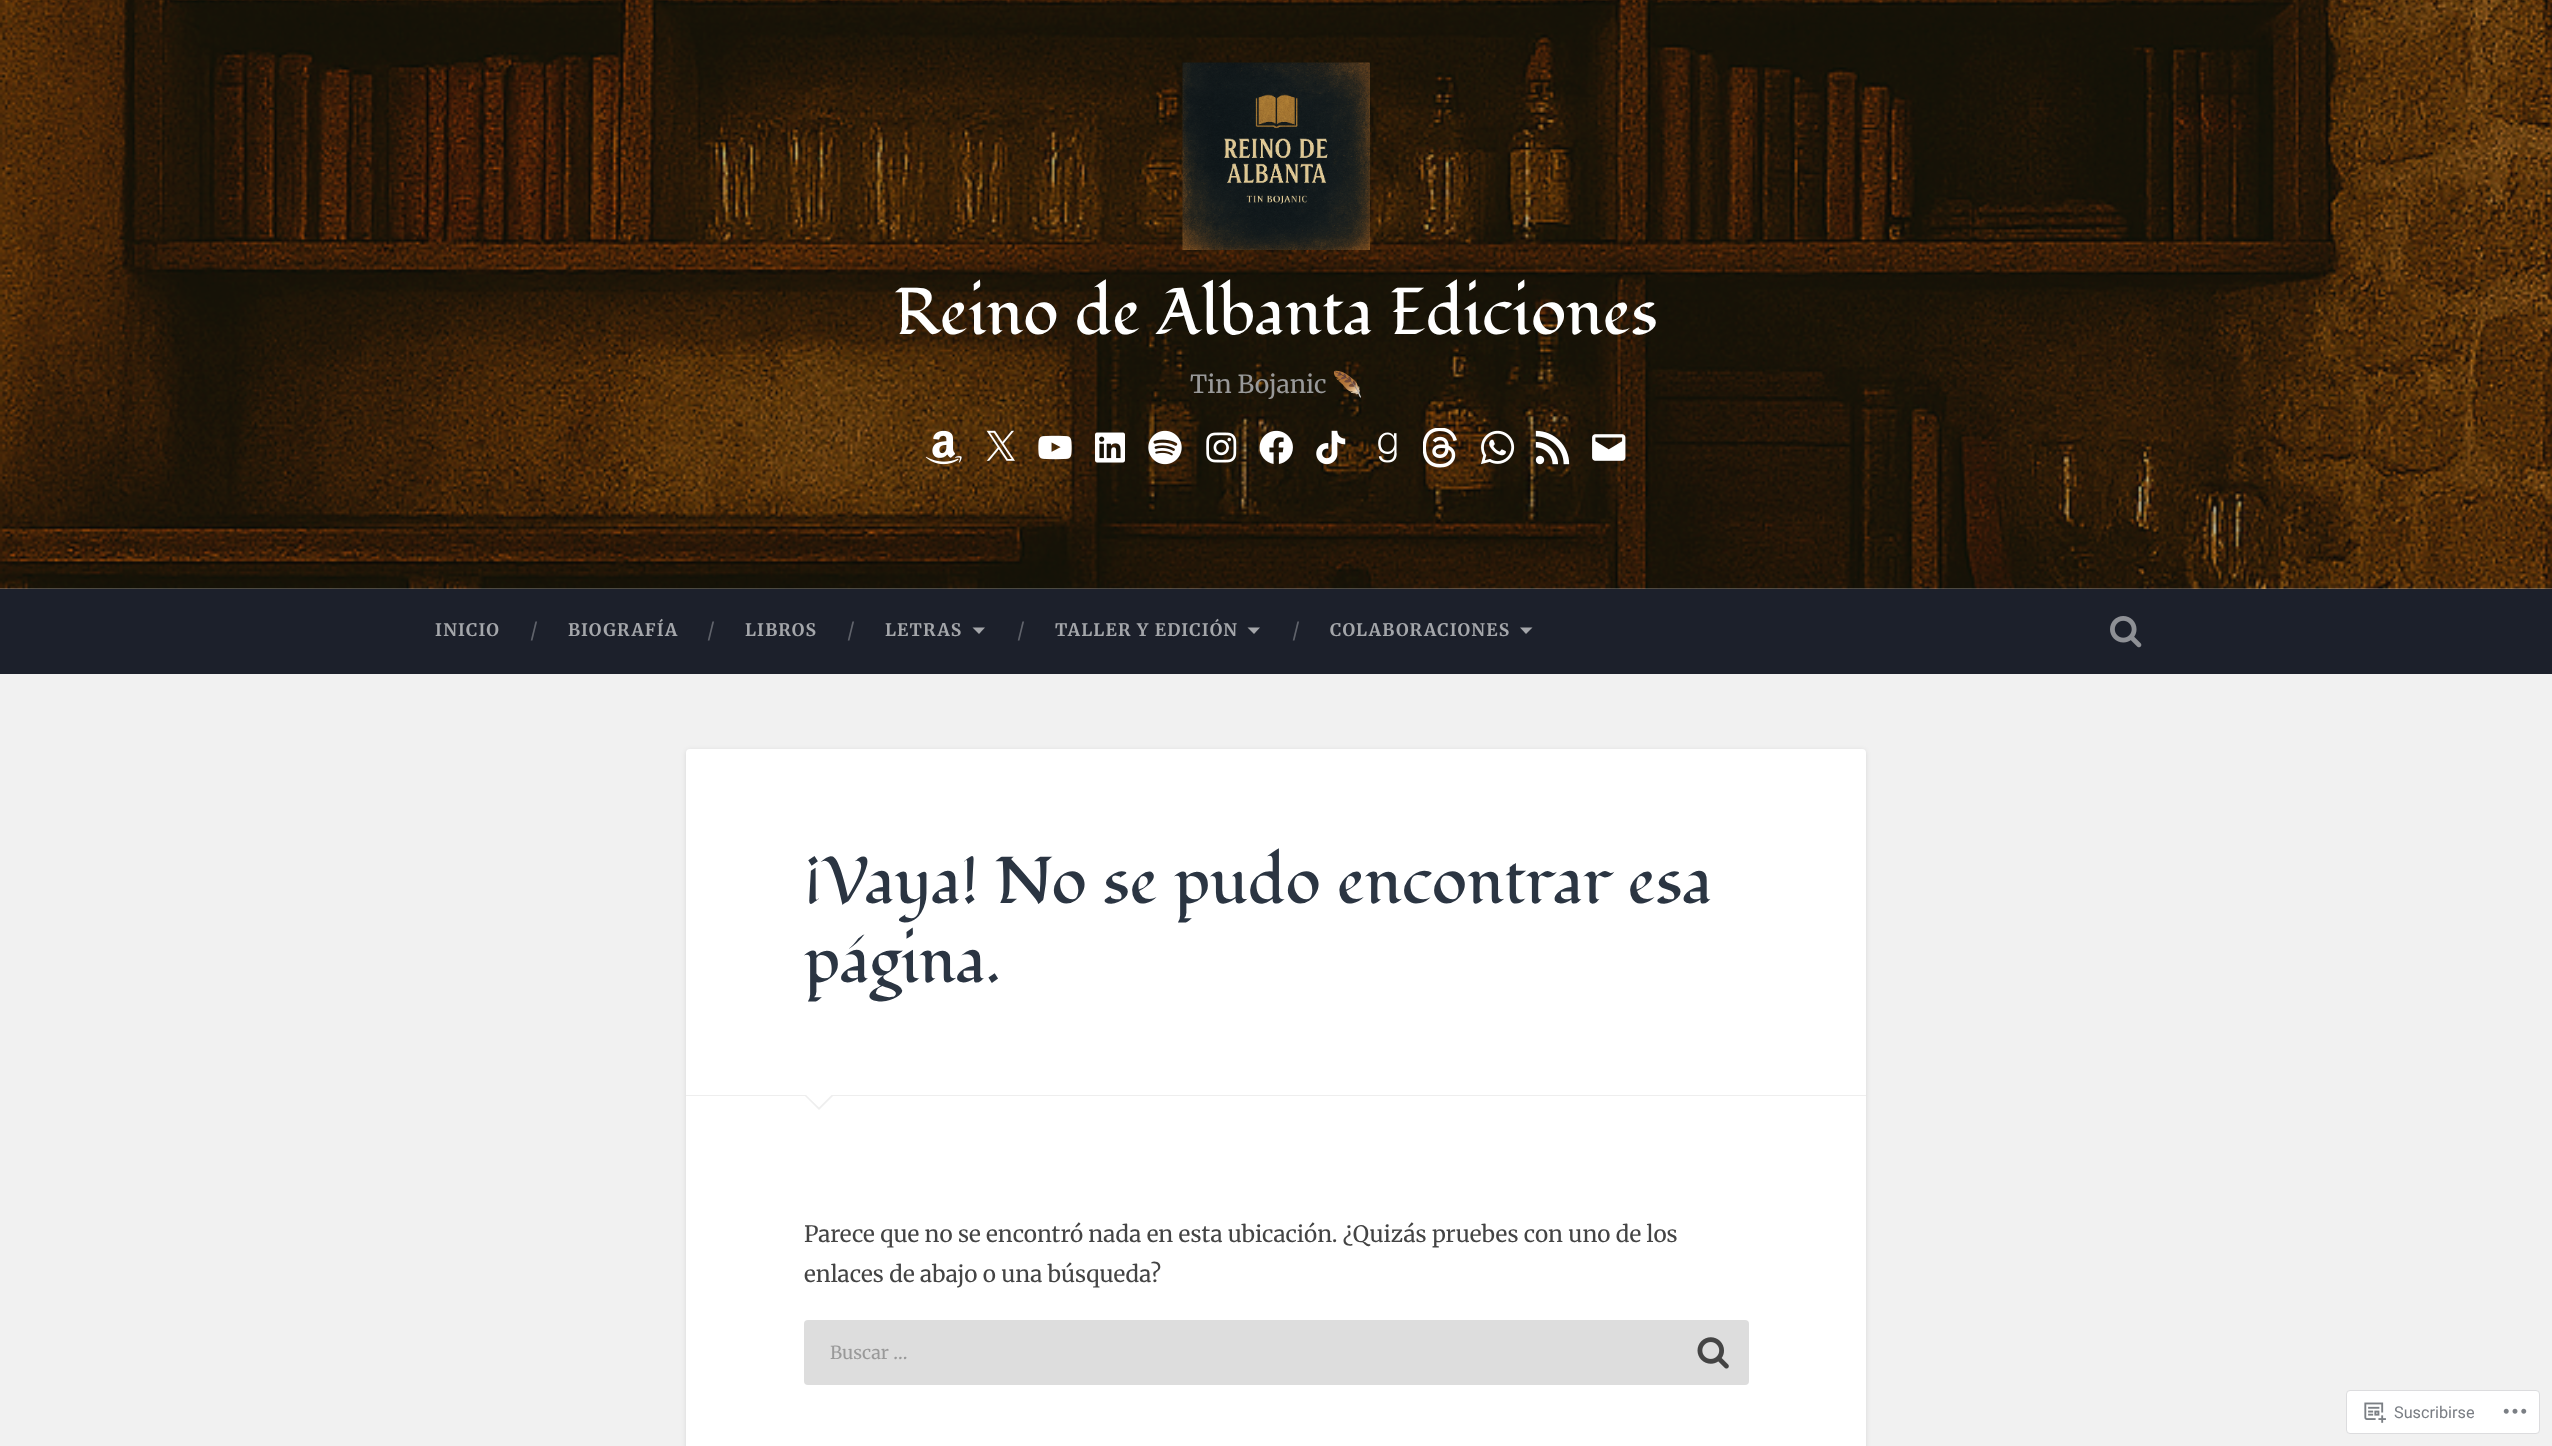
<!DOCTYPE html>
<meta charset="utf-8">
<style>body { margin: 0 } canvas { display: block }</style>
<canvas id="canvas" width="2552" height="1446"></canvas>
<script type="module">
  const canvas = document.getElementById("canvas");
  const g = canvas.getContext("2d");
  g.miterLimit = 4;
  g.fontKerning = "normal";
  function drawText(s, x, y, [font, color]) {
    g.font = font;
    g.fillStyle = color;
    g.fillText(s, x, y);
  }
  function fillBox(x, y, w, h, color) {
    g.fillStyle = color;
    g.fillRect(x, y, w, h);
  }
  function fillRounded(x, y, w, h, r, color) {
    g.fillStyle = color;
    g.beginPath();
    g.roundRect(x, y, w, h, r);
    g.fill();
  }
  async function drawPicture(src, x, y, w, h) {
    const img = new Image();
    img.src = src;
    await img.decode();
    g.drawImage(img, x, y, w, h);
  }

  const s1 = ["65.75px Fondamento", "#FFFFFF"];
  const s2 = ["24.75px Merriweather", "#999999"];
  const s3 = ["24.75px Noto Color Emoji", "#999999"];
  const s4 = ["bold 17.25px Merriweather", "#A4A6AA"];
  const s5 = ["20px Merriweather", "#60636B"];
  const s6 = ["65.75px Fondamento", "#2B3542"];
  const s7 = ["22.5px Merriweather", "#444444"];
  const s8 = ["18px Merriweather", "#999999"];
  const s9 = ["16.25px Roboto", "#7A7E84"];

  fillBox(0, 0, 2552, 1446, "#F1F1F1");
  await drawPicture("pic1.png", 0, 0, 2552, 589);
  await drawPicture("pic2.png", 1182, 62, 188, 188);
  drawText("Reino de Albanta Ediciones", 894, 334, s1);
  drawText("Tin Bojanic", 1190, 393, s2);
  drawText("🪶", 1332, 393, s3);
  await drawPicture("pic3.png", 925, 430, 37, 35);
  await drawPicture("pic4.png", 986, 430, 29, 31);
  await drawPicture("pic5.png", 1038, 435, 34, 25);
  await drawPicture("pic6.png", 1095, 432, 30, 31);
  await drawPicture("pic7.png", 1148, 430, 34, 35);
  await drawPicture("pic8.png", 1206, 432, 31, 31);
  await drawPicture("pic9.png", 1259, 430, 34, 34);
  await drawPicture("pic10.png", 1316, 430, 30, 35);
  await drawPicture("pic11.png", 1378, 432, 19, 31);
  await drawPicture("pic12.png", 1423, 428, 34, 40);
  await drawPicture("pic13.png", 1481, 430, 34, 35);
  await drawPicture("pic14.png", 1535, 430, 35, 35);
  await drawPicture("pic15.png", 1592, 434, 34, 27);
  fillBox(0, 589, 2552, 85, "#1C202B");
  g.letterSpacing = "1.25px";
  drawText("INICIO", 435, 636, s4);
  g.letterSpacing = "0px";
  drawText("/", 530, 637, s5);
  g.letterSpacing = "1.25px";
  drawText("BIOGRAFÍA", 568, 636, s4);
  g.letterSpacing = "0px";
  drawText("/", 707, 637, s5);
  g.letterSpacing = "1.25px";
  drawText("LIBROS", 745, 636, s4);
  g.letterSpacing = "0px";
  drawText("/", 847, 637, s5);
  g.letterSpacing = "1.25px";
  drawText("LETRAS", 885, 636, s4);
  g.beginPath();
  g.moveTo(972.5, 627.5);
  g.lineTo(985, 627.5);
  g.lineTo(979, 634);
  g.closePath();
  g.fill();
  g.letterSpacing = "0px";
  drawText("/", 1017, 637, s5);
  g.letterSpacing = "1.25px";
  drawText("TALLER Y EDICIÓN", 1055, 636, s4);
  g.beginPath();
  g.moveTo(1247.5, 627.5);
  g.lineTo(1260, 627.5);
  g.lineTo(1254, 634);
  g.closePath();
  g.fill();
  g.letterSpacing = "0px";
  drawText("/", 1292, 637, s5);
  g.letterSpacing = "1.25px";
  drawText("COLABORACIONES", 1330, 636, s4);
  g.beginPath();
  g.moveTo(1520, 627.5);
  g.lineTo(1532.5, 627.5);
  g.lineTo(1526, 634);
  g.closePath();
  g.fill();
  await drawPicture("pic16.png", 2110, 616, 32, 32);
  g.fillStyle = "rgba(0, 0, 0, 0.1)";
  g.filter = "blur(2.5px)";
  g.beginPath();
  g.roundRect(686, 750, 1180, 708, 4);
  g.fill();
  g.filter = "none";
  fillRounded(686, 749, 1180, 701, 4, "#FFFFFF");
  fillBox(686, 1095, 1180, 1, "#EEEEEE");
  g.letterSpacing = "0px";
  drawText("¡Vaya! No se pudo encontrar esa", 804, 903, s6);
  drawText("página.", 804, 982, s6);
  g.fillStyle = "#EEEEEE";
  g.beginPath();
  g.moveTo(804, 1095);
  g.lineTo(834, 1095);
  g.lineTo(819, 1110);
  g.closePath();
  g.fill();
  g.fillStyle = "#FFFFFF";
  g.beginPath();
  g.moveTo(805, 1094);
  g.lineTo(832.5, 1094);
  g.lineTo(819, 1107.5);
  g.closePath();
  g.fill();
  drawText("Parece que no se encontró nada en esta ubicación. ¿Quizás pruebes con uno de los", 804, 1242, s7);
  drawText("enlaces de abajo o una búsqueda?", 804, 1282, s7);
  fillRounded(804, 1320, 945, 65, 4, "#DDDDDD");
  drawText("Buscar …", 830, 1359, s8);
  await drawPicture("pic17.png", 1697, 1337, 32, 32);
  g.fillStyle = "#FFFFFF";
  g.beginPath();
  g.roundRect(2346.5, 1390.5, 193, 43, 3.5);
  g.fill();
  g.strokeStyle = "#DCDCDE";
  g.stroke();
  await drawPicture("pic18.png", 2364, 1402, 22, 21);
  drawText("Suscribirse", 2394, 1418, s9);
  await drawPicture("pic19.png", 2503, 1408, 24, 6);
</script>
